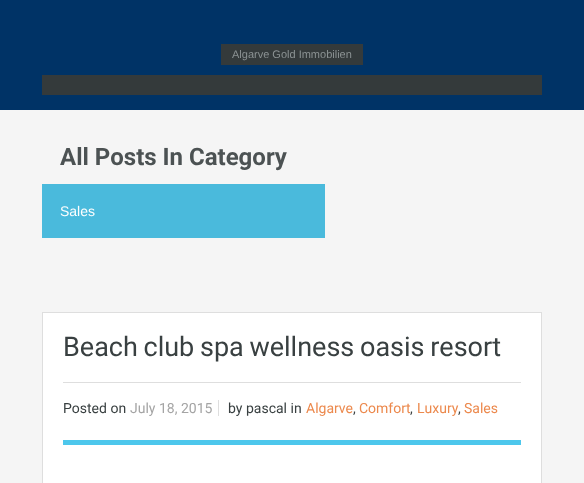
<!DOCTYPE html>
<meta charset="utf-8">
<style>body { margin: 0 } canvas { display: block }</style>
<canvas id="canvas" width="584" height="483"></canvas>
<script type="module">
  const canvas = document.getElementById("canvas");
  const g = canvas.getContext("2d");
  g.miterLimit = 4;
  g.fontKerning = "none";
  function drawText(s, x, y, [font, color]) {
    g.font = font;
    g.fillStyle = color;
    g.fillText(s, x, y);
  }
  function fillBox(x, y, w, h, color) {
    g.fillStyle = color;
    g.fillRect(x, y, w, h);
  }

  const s1 = ["11px Liberation Sans", "#8B9293"];
  const s2 = ["bold 24px Roboto", "#4C5253"];
  const s3 = ["14px Liberation Sans", "#FEFEFE"];
  const s4 = ["27px Roboto", "#394041"];
  const s5 = ["14px Roboto", "#394041"];
  const s6 = ["14px Roboto", "#A4A4A4"];
  const s7 = ["14px Roboto", "#EC894D"];

  fillBox(0, 0, 584, 483, "#F5F5F5");
  fillBox(0, 0, 584, 110, "#003366");
  fillBox(221, 44, 142, 21, "#343A3B");
  drawText("Algarve Gold Immobilien", 232, 58, s1);
  fillBox(42, 75, 500, 20, "#343A3B");
  drawText("All Posts In Category", 60, 165, s2);
  fillBox(42, 184, 283, 54, "#4ABADC");
  drawText("Sales", 60, 216, s3);
  fillBox(541, 312, 1, 171, "#DEDEDE");
  fillBox(42, 312, 1, 171, "#DEDEDE");
  fillBox(43, 313, 498, 170, "#FFFFFF");
  fillBox(43, 312, 498, 1, "#DEDEDE");
  g.wordSpacing = "-1px";
  drawText("Beach club spa wellness oasis resort", 63, 356, s4);
  fillBox(63, 382, 458, 1, "#DEDEDE");
  fillBox(63, 440, 458, 5, "#4DC7EC");
  g.wordSpacing = "0px";
  drawText("Posted on", 63, 413, s5);
  drawText("July 18, 2015", 130, 413, s6);
  fillBox(218, 400, 1, 16, "#DEDEDE");
  drawText("by pascal in", 228, 413, s5);
  drawText("Algarve", 306, 413, s7);
  drawText(",", 353, 413, s5);
  drawText("Comfort", 359, 413, s7);
  drawText(",", 410, 413, s5);
  drawText("Luxury", 417, 413, s7);
  drawText(",", 458, 413, s5);
  drawText("Sales", 464, 413, s7);
</script>
